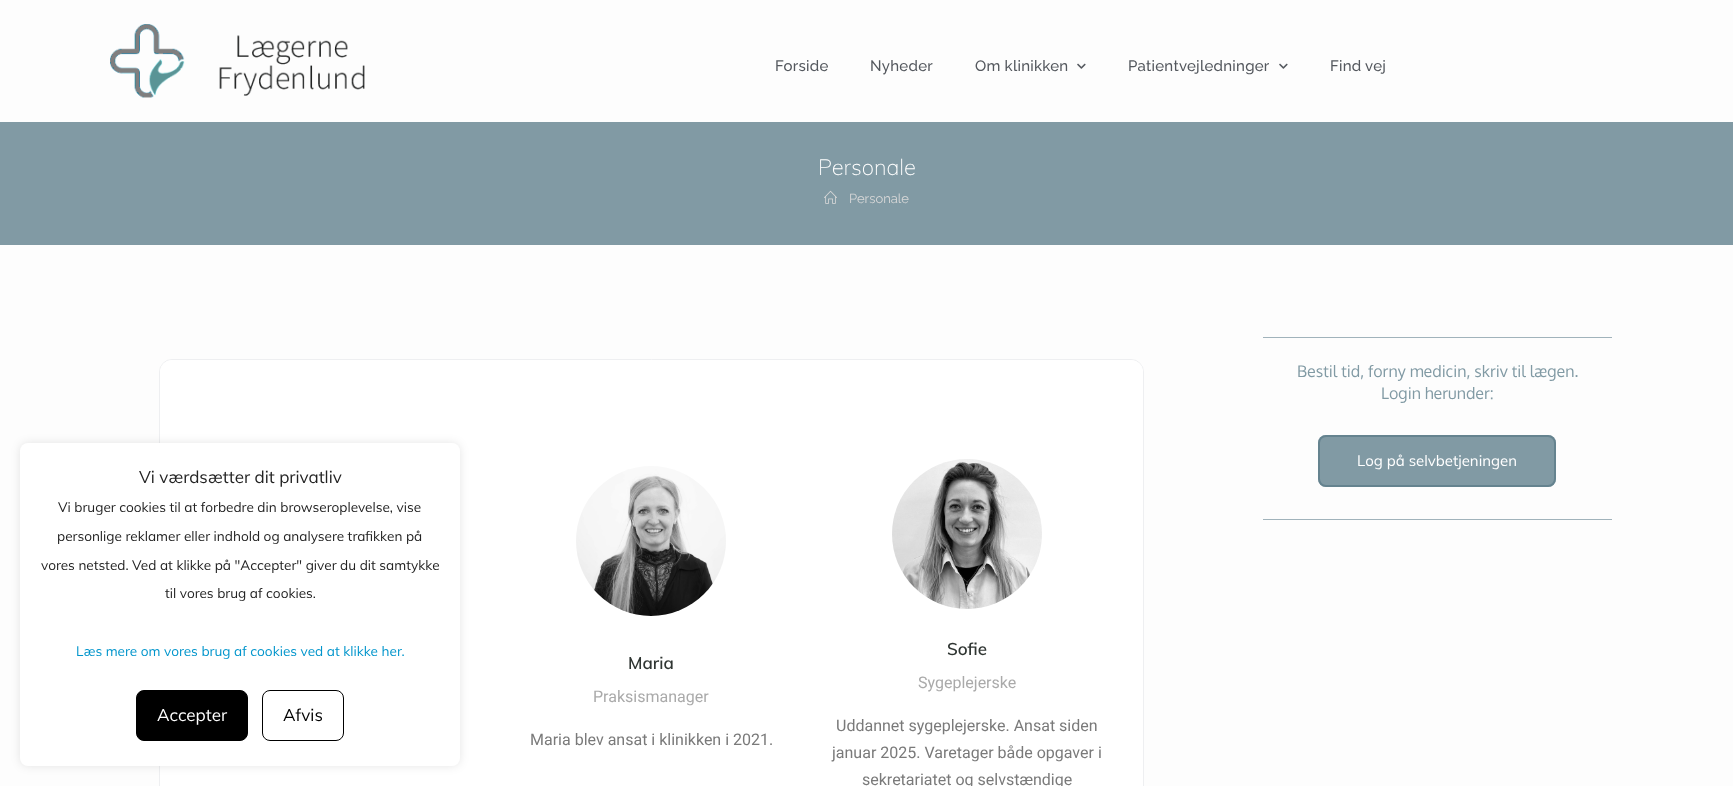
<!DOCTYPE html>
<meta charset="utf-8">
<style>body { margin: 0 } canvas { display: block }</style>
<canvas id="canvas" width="1733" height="786"></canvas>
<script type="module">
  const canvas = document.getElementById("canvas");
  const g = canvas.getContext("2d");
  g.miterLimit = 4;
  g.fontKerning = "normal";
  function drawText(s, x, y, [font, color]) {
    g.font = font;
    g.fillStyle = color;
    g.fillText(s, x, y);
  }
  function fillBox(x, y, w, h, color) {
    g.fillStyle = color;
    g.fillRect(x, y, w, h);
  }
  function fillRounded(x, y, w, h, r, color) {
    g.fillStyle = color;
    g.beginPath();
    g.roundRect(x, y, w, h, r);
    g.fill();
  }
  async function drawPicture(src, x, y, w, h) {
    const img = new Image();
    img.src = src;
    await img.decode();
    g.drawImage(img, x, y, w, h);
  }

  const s1 = ["17px Muli", "#232323"];
  const s2 = ["13.6px Muli", "#232323"];
  const s3 = ["13.6px Muli", "#0095CC"];
  const s4 = ["17px Muli", "#FFFFFF"];
  const s5 = ["17px Muli", "#000000"];
  const s6 = ["500 15px Raleway", "#54585E"];
  const s7 = ["200 22px Muli", "#FFFFFF"];
  const s8 = ["13px Raleway", "#D8D8D8"];
  const s9 = ["16px Oxygen", "#819AA4"];
  const s10 = ["15px Muli", "#FFFFFF"];
  const s11 = ["600 17px Muli", "#2F3532"];
  const s12 = ["16px Roboto", "#AAAAAA"];
  const s13 = ["16px Roboto", "#7A7A7A"];

  fillBox(0, 0, 1733, 786, "#FDFDFD");
  g.beginPath();
  g.roundRect(159.5, 359.5, 984, 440, 12.5);
  g.strokeStyle = "#EEEFF1";
  g.stroke();
  fillRounded(160, 360, 983, 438, 12, "#FFFFFF");
  g.fillStyle = "rgba(0, 0, 0, 0.1)";
  g.filter = "blur(5px)";
  g.beginPath();
  g.roundRect(20, 443, 440, 323, 8);
  g.fill();
  g.filter = "none";
  fillRounded(20, 443, 440, 323, 8, "#FFFFFF");
  drawText("Vi værdsætter dit privatliv", 139, 483, s1);
  drawText("Vi bruger cookies til at forbedre din browseroplevelse, vise", 58, 512, s2);
  drawText("personlige reklamer eller indhold og analysere trafikken på", 57, 541, s2);
  drawText("vores netsted. Ved at klikke på \"Accepter\" giver du dit samtykke", 41, 570, s2);
  drawText("til vores brug af cookies.", 165, 598, s2);
  drawText("Læs mere om vores brug af cookies ved at klikke her.", 76, 656, s3);
  g.fillStyle = "#000000";
  g.beginPath();
  g.roundRect(136.5, 690.5, 111, 50, 7.5);
  g.fill();
  g.strokeStyle = "#000000";
  g.stroke();
  drawText("Accepter", 157, 721, s4);
  g.beginPath();
  g.roundRect(262.5, 690.5, 81, 50, 7.5);
  g.stroke();
  drawText("Afvis", 283, 721, s5);
  await drawPicture("pic1.png", 110, 24, 255, 74);
  g.letterSpacing = "0.25px";
  drawText("Forside", 775, 71, s6);
  drawText("Nyheder", 870, 71, s6);
  drawText("Om klinikken", 975, 71, s6);
  await drawPicture("pic2.png", 1077, 63, 9, 6);
  drawText("Patientvejledninger", 1128, 71, s6);
  await drawPicture("pic2.png", 1279, 63, 9, 6);
  drawText("Find vej", 1330, 71, s6);
  fillBox(0, 122, 1733, 123, "#819AA4");
  g.letterSpacing = "0px";
  drawText("Personale", 818, 175, s7);
  await drawPicture("pic3.png", 824, 190, 13, 14);
  drawText("Personale", 849, 203, s8);
  fillBox(1263, 337, 349, 1, "#A1B3BB");
  drawText("Bestil tid, forny medicin, skriv til lægen.", 1297, 377, s9);
  drawText("Login herunder:", 1381, 399, s9);
  fillRounded(1318, 435, 238, 52, 8, "#819AA4");
  g.beginPath();
  g.roundRect(1319, 436, 236, 50, 7);
  g.strokeStyle = "rgba(92, 124, 137, 0.77)";
  g.lineWidth = 2;
  g.stroke();
  drawText("Log på selvbetjeningen", 1357, 466, s10);
  fillBox(1263, 519, 349, 1, "#A1B3BB");
  await drawPicture("pic4.png", 576, 466, 150, 150);
  drawText("Maria", 628, 669, s11);
  drawText("Praksismanager", 593, 702, s12);
  drawText("Maria blev ansat i klinikken i 2021.", 530, 745, s13);
  await drawPicture("pic5.png", 892, 459, 150, 150);
  drawText("Sofie", 947, 655, s11);
  drawText("Sygeplejerske", 918, 688, s12);
  drawText("Uddannet sygeplejerske. Ansat siden", 836, 731, s13);
  drawText("januar 2025. Varetager både opgaver i", 832, 758, s13);
  drawText("sekretariatet og selvstændige", 862, 785, s13);
</script>
